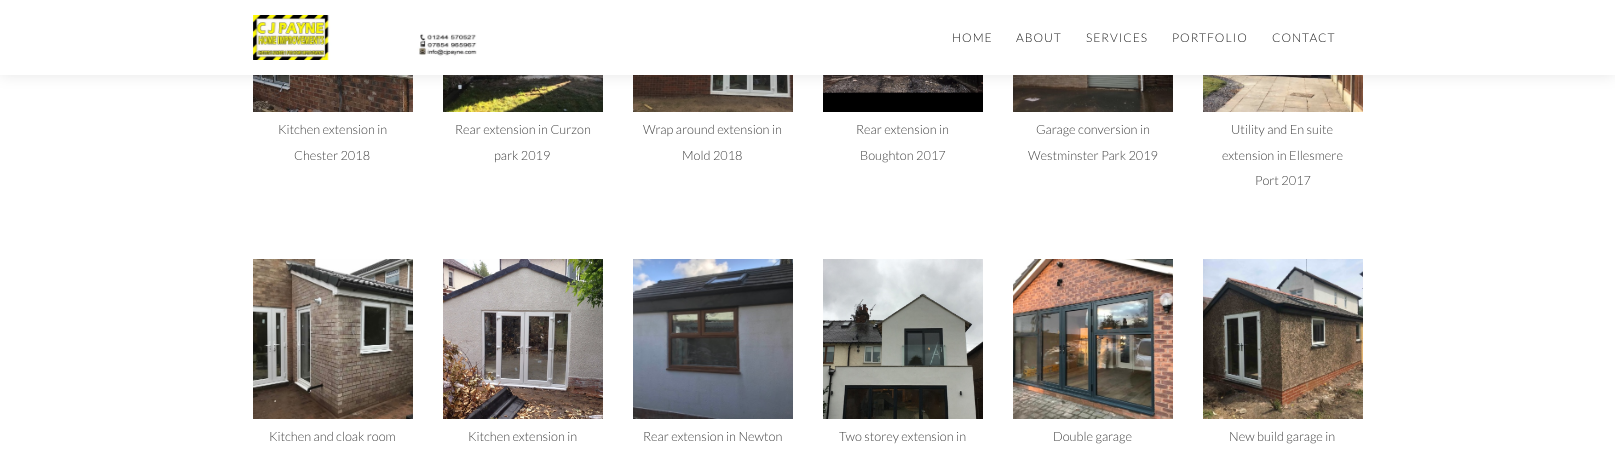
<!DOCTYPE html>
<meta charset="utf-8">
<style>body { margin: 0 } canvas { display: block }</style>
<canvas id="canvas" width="1615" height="460"></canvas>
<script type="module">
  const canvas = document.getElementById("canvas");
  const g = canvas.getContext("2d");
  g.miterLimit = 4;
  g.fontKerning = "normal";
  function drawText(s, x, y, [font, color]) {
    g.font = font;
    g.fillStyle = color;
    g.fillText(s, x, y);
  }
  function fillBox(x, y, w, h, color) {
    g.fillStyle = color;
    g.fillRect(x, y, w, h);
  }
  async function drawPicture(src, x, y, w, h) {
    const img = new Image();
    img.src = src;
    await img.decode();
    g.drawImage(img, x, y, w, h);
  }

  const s1 = ["300 12px Lato", "#1A1A1A"];
  const s2 = ["300 12.75px Lato", "#454545"];

  fillBox(0, 0, 1615, 460, "#FFFFFF");
  await drawPicture("pic2.png", 253, 75, 160, 37);
  await drawPicture("pic3.png", 443, 75, 160, 37);
  await drawPicture("pic4.png", 633, 75, 160, 37);
  await drawPicture("pic5.png", 823, 75, 160, 37);
  await drawPicture("pic6.png", 1013, 75, 160, 37);
  await drawPicture("pic7.png", 1203, 75, 160, 37);
  g.fillStyle = "rgba(0, 0, 0, 0.1)";
  g.filter = "blur(7.5px)";
  g.beginPath();
  g.rect(0, 0, 1615, 75);
  g.fill();
  g.filter = "none";
  fillBox(0, 0, 1615, 75, "#FFFFFF");
  await drawPicture("pic1.png", 253, 15, 224, 45);
  g.letterSpacing = "1px";
  drawText("HOME", 952, 42, s1);
  drawText("ABOUT", 1016, 42, s1);
  drawText("SERVICES", 1086, 42, s1);
  drawText("PORTFOLIO", 1172, 42, s1);
  drawText("CONTACT", 1272, 42, s1);
  g.letterSpacing = "0px";
  drawText("Kitchen extension in", 278, 134, s2);
  drawText("Chester 2018", 294, 160, s2);
  drawText("Rear extension in Curzon", 455, 134, s2);
  drawText("park 2019", 494, 160, s2);
  drawText("Wrap around extension in", 643, 134, s2);
  drawText("Mold 2018", 682, 160, s2);
  drawText("Rear extension in", 856, 134, s2);
  drawText("Boughton 2017", 860, 160, s2);
  drawText("Garage conversion in", 1036, 134, s2);
  drawText("Westminster Park 2019", 1028, 160, s2);
  drawText("Utility and En suite", 1231, 134, s2);
  drawText("extension in Ellesmere", 1222, 160, s2);
  drawText("Port 2017", 1255, 185, s2);
  await drawPicture("pic8.png", 253, 259, 160, 160);
  drawText("Kitchen and cloak room", 269, 441, s2);
  await drawPicture("pic9.png", 443, 259, 160, 160);
  drawText("Kitchen extension in", 468, 441, s2);
  await drawPicture("pic10.png", 633, 259, 160, 160);
  drawText("Rear extension in Newton", 643, 441, s2);
  await drawPicture("pic11.png", 823, 259, 160, 160);
  drawText("Two storey extension in", 839, 441, s2);
  await drawPicture("pic12.png", 1013, 259, 160, 160);
  drawText("Double garage", 1053, 441, s2);
  await drawPicture("pic13.png", 1203, 259, 160, 160);
  drawText("New build garage in", 1229, 441, s2);
</script>
